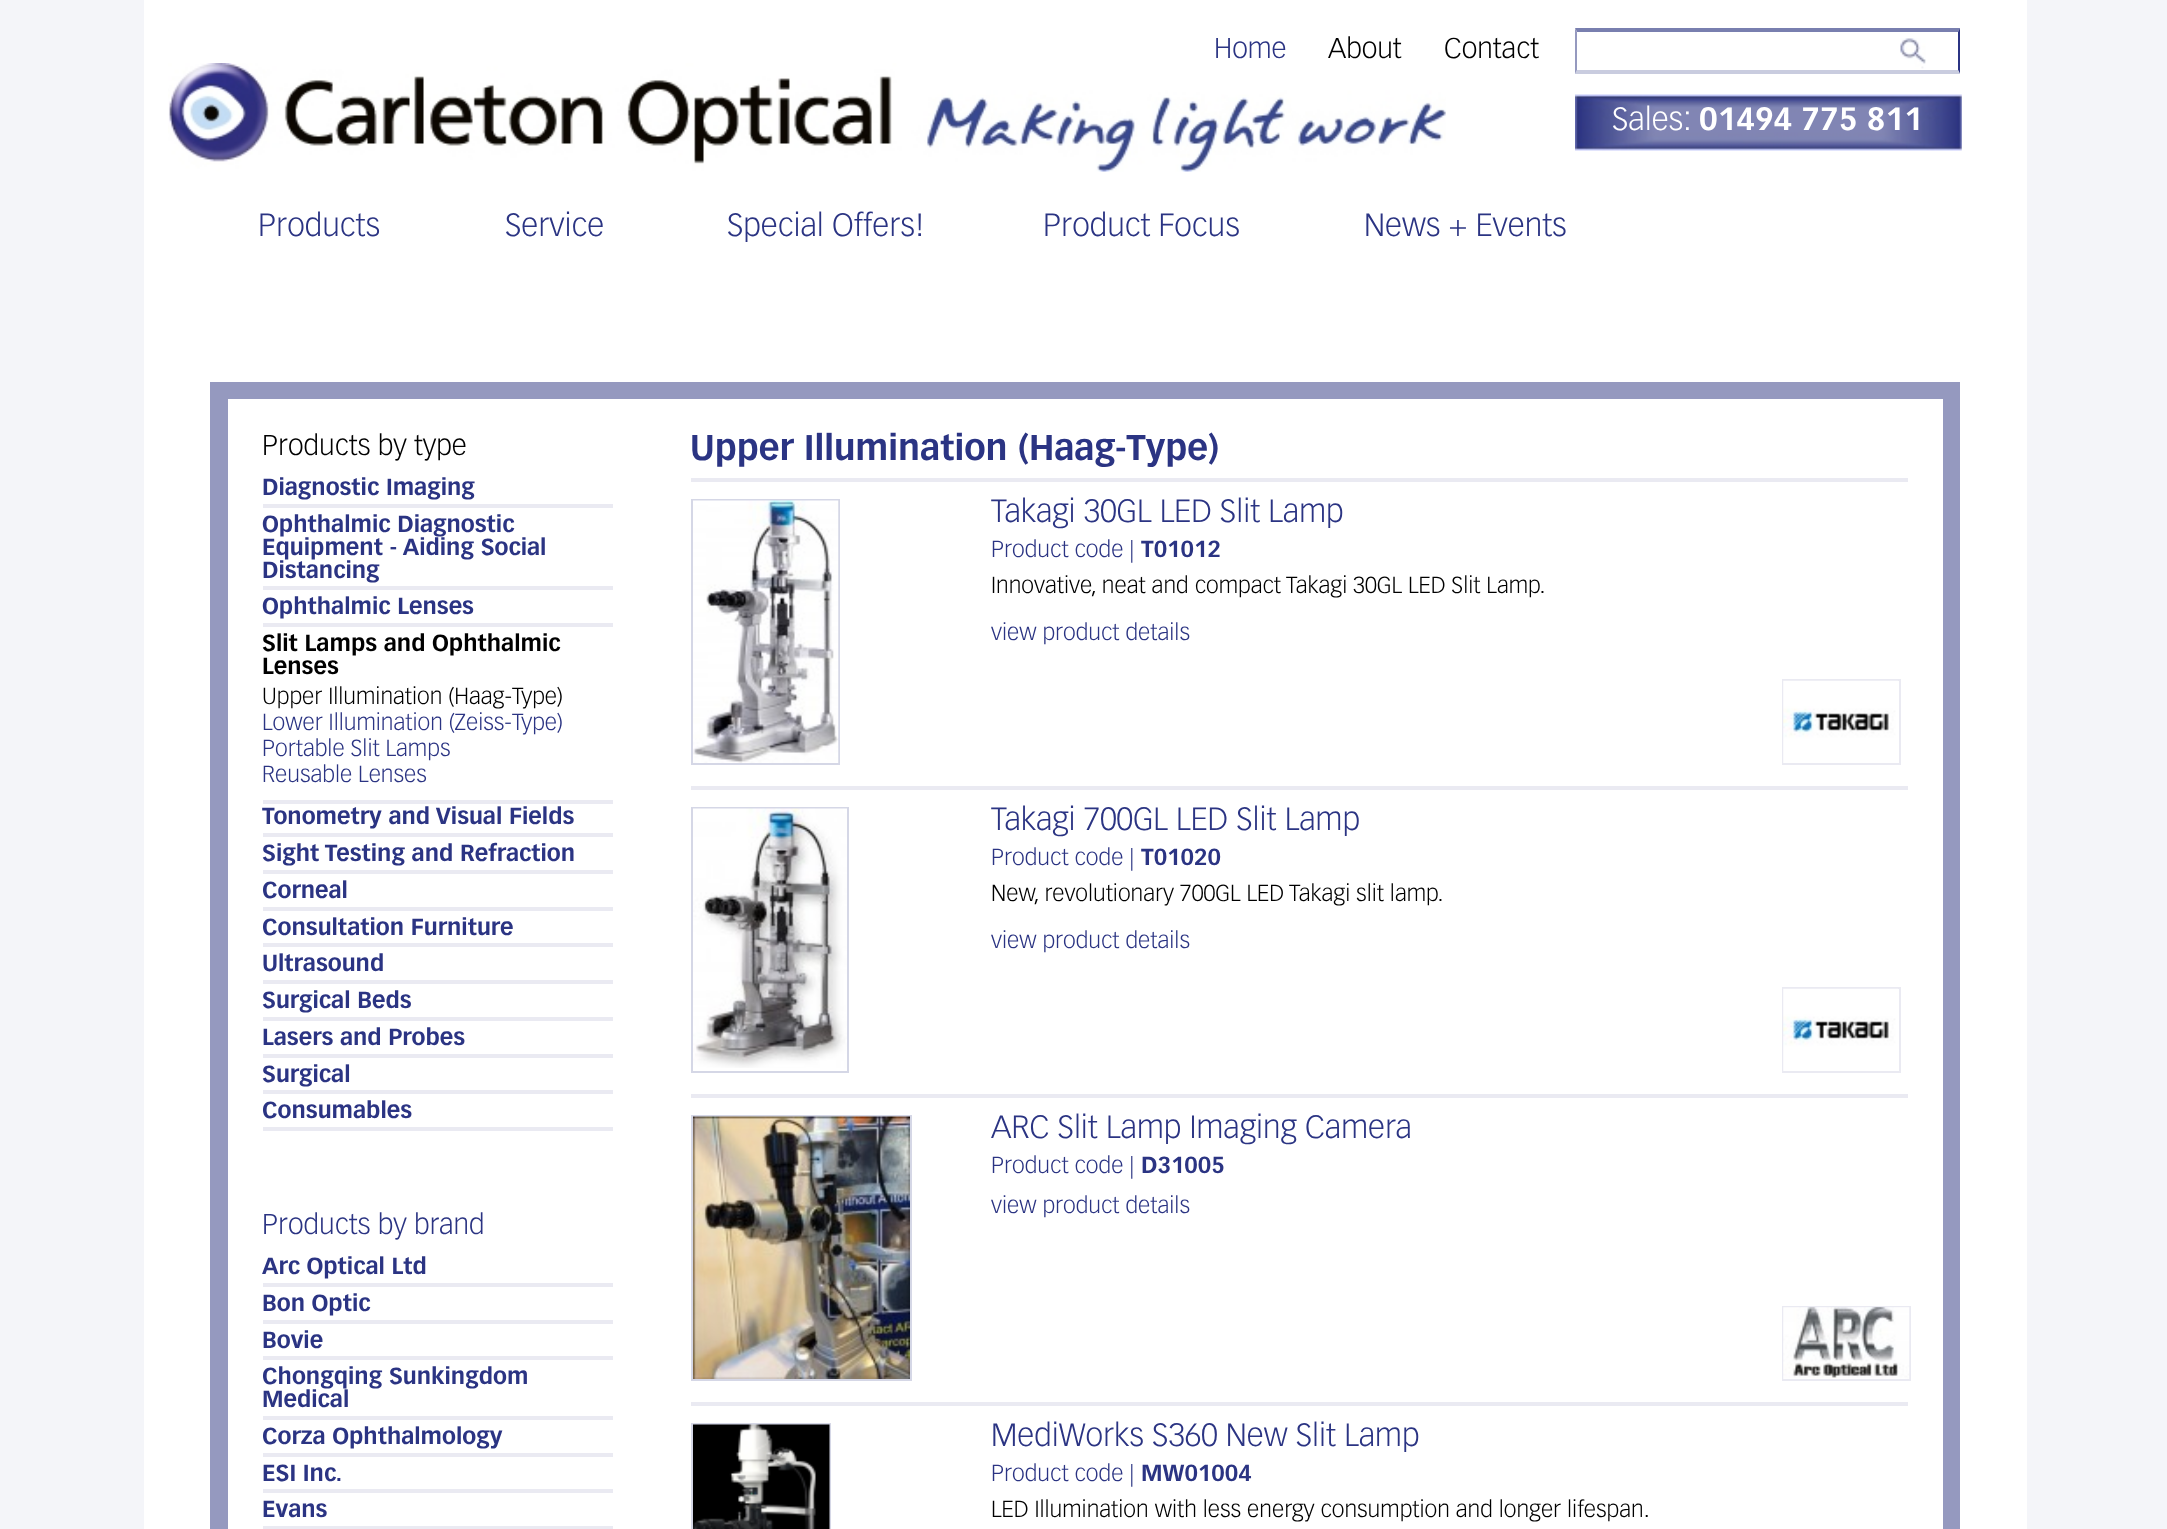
<!DOCTYPE html>
<meta charset="utf-8">
<style>body { margin: 0 } canvas { display: block }</style>
<canvas id="canvas" width="2167" height="1529"></canvas>
<script type="module">
  const canvas = document.getElementById("canvas");
  const g = canvas.getContext("2d");
  g.miterLimit = 4;
  g.fontKerning = "normal";
  function drawText(s, x, y, [font, color]) {
    g.font = font;
    g.fillStyle = color;
    g.fillText(s, x, y);
  }
  function fillBox(x, y, w, h, color) {
    g.fillStyle = color;
    g.fillRect(x, y, w, h);
  }
  async function drawPicture(src, x, y, w, h) {
    const img = new Image();
    img.src = src;
    await img.decode();
    g.drawImage(img, x, y, w, h);
  }

  const s1 = ["300 28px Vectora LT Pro", "#2B3483"];
  const s2 = ["300 28px Vectora LT Pro", "#000000"];
  const s3 = ["300 31.5px Vectora LT Pro", "#FFFFFF"];
  const s4 = ["bold 31.5px Vectora LT Pro", "#FFFFFF"];
  const s5 = ["300 31.5px Vectora LT Pro", "#2B3483"];
  const s6 = ["bold 22.75px Vectora LT Pro", "#2B3483"];
  const s7 = ["bold 22.75px Vectora LT Pro", "#000000"];
  const s8 = ["300 22.75px Vectora LT Pro", "#000000"];
  const s9 = ["300 22.75px Vectora LT Pro", "#2B3483"];
  const s10 = ["bold 35px Vectora LT Pro", "#2B3483"];

  fillBox(0, 0, 2167, 1529, "#F4F5F9");
  fillBox(144, 0, 1883, 1529, "#FFFFFF");
  drawText("Home", 1214, 58, s1);
  drawText("About", 1328, 58, s2);
  drawText("Contact", 1444, 58, s2);
  await drawPicture("pic1.png", 168, 63, 1278, 109);
  await drawPicture("pic2.png", 1900, 38, 26, 31);
  g.fillStyle = "#797FAF";
  g.beginPath();
  g.moveTo(1575, 28);
  g.lineTo(1960, 28);
  g.lineTo(1958, 32);
  g.lineTo(1577, 32);
  g.closePath();
  g.fill();
  g.fillStyle = "#2B3483";
  g.beginPath();
  g.moveTo(1960, 28);
  g.lineTo(1960, 74);
  g.lineTo(1958, 70);
  g.lineTo(1958, 32);
  g.closePath();
  g.fill();
  g.fillStyle = "#C9CCDF";
  g.beginPath();
  g.moveTo(1960, 74);
  g.lineTo(1575, 74);
  g.lineTo(1577, 70);
  g.lineTo(1958, 70);
  g.closePath();
  g.fill();
  g.fillStyle = "#9599BF";
  g.beginPath();
  g.moveTo(1575, 74);
  g.lineTo(1575, 28);
  g.lineTo(1577, 32);
  g.lineTo(1577, 70);
  g.closePath();
  g.fill();
  await drawPicture("pic3.png", 1575, 94, 387, 57);
  drawText("Sales:", 1612, 130, s3);
  drawText("01494 775 811", 1699, 130, s4);
  drawText("Products", 258, 236, s5);
  drawText("Service", 505, 236, s5);
  drawText("Special Offers!", 727, 236, s5);
  drawText("Product Focus", 1043, 236, s5);
  drawText("News + Events", 1364, 236, s5);
  fillBox(228, 382, 1715, 17, "#9599BF");
  fillBox(1943, 382, 17, 1147, "#9599BF");
  fillBox(210, 382, 18, 1147, "#9599BF");
  drawText("Products by type", 262, 455, s2);
  fillBox(263, 504, 350, 4, "#EAEAF2");
  drawText("Diagnostic Imaging", 262, 495, s6);
  fillBox(263, 586, 350, 4, "#EAEAF2");
  drawText("Ophthalmic Diagnostic", 262, 532, s6);
  drawText("Equipment - Aiding Social", 262, 555, s6);
  drawText("Distancing", 262, 578, s6);
  fillBox(263, 623, 350, 4, "#EAEAF2");
  drawText("Ophthalmic Lenses", 262, 614, s6);
  fillBox(263, 800, 350, 4, "#EAEAF2");
  drawText("Slit Lamps and Ophthalmic", 262, 651, s7);
  drawText("Lenses", 262, 674, s7);
  drawText("Upper Illumination (Haag-Type)", 262, 704, s8);
  drawText("Lower Illumination (Zeiss-Type)", 262, 730, s9);
  drawText("Portable Slit Lamps", 262, 756, s9);
  drawText("Reusable Lenses", 262, 782, s9);
  fillBox(263, 833, 350, 4, "#EAEAF2");
  drawText("Tonometry and Visual Fields", 262, 824, s6);
  fillBox(263, 870, 350, 4, "#EAEAF2");
  drawText("Sight Testing and Refraction", 262, 861, s6);
  fillBox(263, 907, 350, 4, "#EAEAF2");
  drawText("Corneal", 262, 898, s6);
  fillBox(263, 943, 350, 4, "#EAEAF2");
  drawText("Consultation Furniture", 262, 935, s6);
  fillBox(263, 980, 350, 4, "#EAEAF2");
  drawText("Ultrasound", 262, 971, s6);
  fillBox(263, 1017, 350, 4, "#EAEAF2");
  drawText("Surgical Beds", 262, 1008, s6);
  fillBox(263, 1054, 350, 4, "#EAEAF2");
  drawText("Lasers and Probes", 262, 1045, s6);
  fillBox(263, 1090, 350, 4, "#EAEAF2");
  drawText("Surgical", 262, 1082, s6);
  fillBox(263, 1127, 350, 4, "#EAEAF2");
  drawText("Consumables", 262, 1118, s6);
  drawText("Products by brand", 262, 1234, s1);
  fillBox(263, 1283, 350, 4, "#EAEAF2");
  drawText("Arc Optical Ltd", 262, 1274, s6);
  fillBox(263, 1320, 350, 4, "#EAEAF2");
  drawText("Bon Optic", 262, 1311, s6);
  fillBox(263, 1356, 350, 4, "#EAEAF2");
  drawText("Bovie", 262, 1348, s6);
  fillBox(263, 1416, 350, 4, "#EAEAF2");
  drawText("Chongqing Sunkingdom", 262, 1384, s6);
  drawText("Medical", 262, 1407, s6);
  fillBox(263, 1453, 350, 4, "#EAEAF2");
  drawText("Corza Ophthalmology", 262, 1444, s6);
  fillBox(263, 1489, 350, 4, "#EAEAF2");
  drawText("ESI Inc.", 262, 1481, s6);
  fillBox(263, 1526, 350, 3, "#EAEAF2");
  drawText("Evans", 262, 1517, s6);
  fillBox(691, 478, 1217, 4, "#EAEAF2");
  drawText("Upper Illumination (Haag-Type)", 690, 460, s10);
  fillBox(691, 786, 1217, 4, "#EAEAF2");
  g.strokeStyle = "#D5D7E6";
  g.lineWidth = 2;
  g.strokeRect(692, 500, 147, 264);
  await drawPicture("pic4.png", 693, 500, 146, 263);
  drawText("Takagi 30GL LED Slit Lamp", 991, 522, s5);
  drawText("Product code |", 991, 557, s9);
  drawText("T01012", 1141, 557, s6);
  drawText("Innovative, neat and compact Takagi 30GL LED Slit Lamp.", 991, 593, s8);
  drawText("view product details", 991, 640, s9);
  g.strokeStyle = "#EAEAF2";
  g.strokeRect(1783, 680, 117, 84);
  await drawPicture("pic5.png", 1783, 680, 115, 83);
  fillBox(691, 1094, 1217, 4, "#EAEAF2");
  g.strokeStyle = "#D5D7E6";
  g.strokeRect(692, 808, 156, 264);
  await drawPicture("pic6.png", 693, 808, 154, 260);
  drawText("Takagi 700GL LED Slit Lamp", 991, 830, s5);
  drawText("Product code |", 991, 865, s9);
  drawText("T01020", 1141, 865, s6);
  drawText("New, revolutionary 700GL LED Takagi slit lamp.", 991, 901, s8);
  drawText("view product details", 991, 948, s9);
  g.strokeStyle = "#EAEAF2";
  g.strokeRect(1783, 988, 117, 84);
  await drawPicture("pic5.png", 1783, 988, 115, 83);
  fillBox(691, 1402, 1217, 4, "#EAEAF2");
  g.strokeStyle = "#D5D7E6";
  g.strokeRect(692, 1116, 219, 264);
  await drawPicture("pic7.png", 693, 1116, 217, 263);
  drawText("ARC Slit Lamp Imaging Camera", 991, 1138, s5);
  drawText("Product code |", 991, 1173, s9);
  drawText("D31005", 1141, 1173, s6);
  drawText("view product details", 991, 1213, s9);
  g.strokeStyle = "#EAEAF2";
  g.strokeRect(1783, 1307, 127, 73);
  await drawPicture("pic8.png", 1783, 1307, 127, 72);
  g.strokeStyle = "#D5D7E6";
  g.strokeRect(692, 1424, 138, 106);
  await drawPicture("pic9.png", 693, 1424, 137, 105);
  drawText("MediWorks S360 New Slit Lamp", 991, 1446, s5);
  drawText("Product code |", 991, 1481, s9);
  drawText("MW01004", 1141, 1481, s6);
  drawText("LED Illumination with less energy consumption and longer lifespan.", 991, 1517, s8);
</script>
